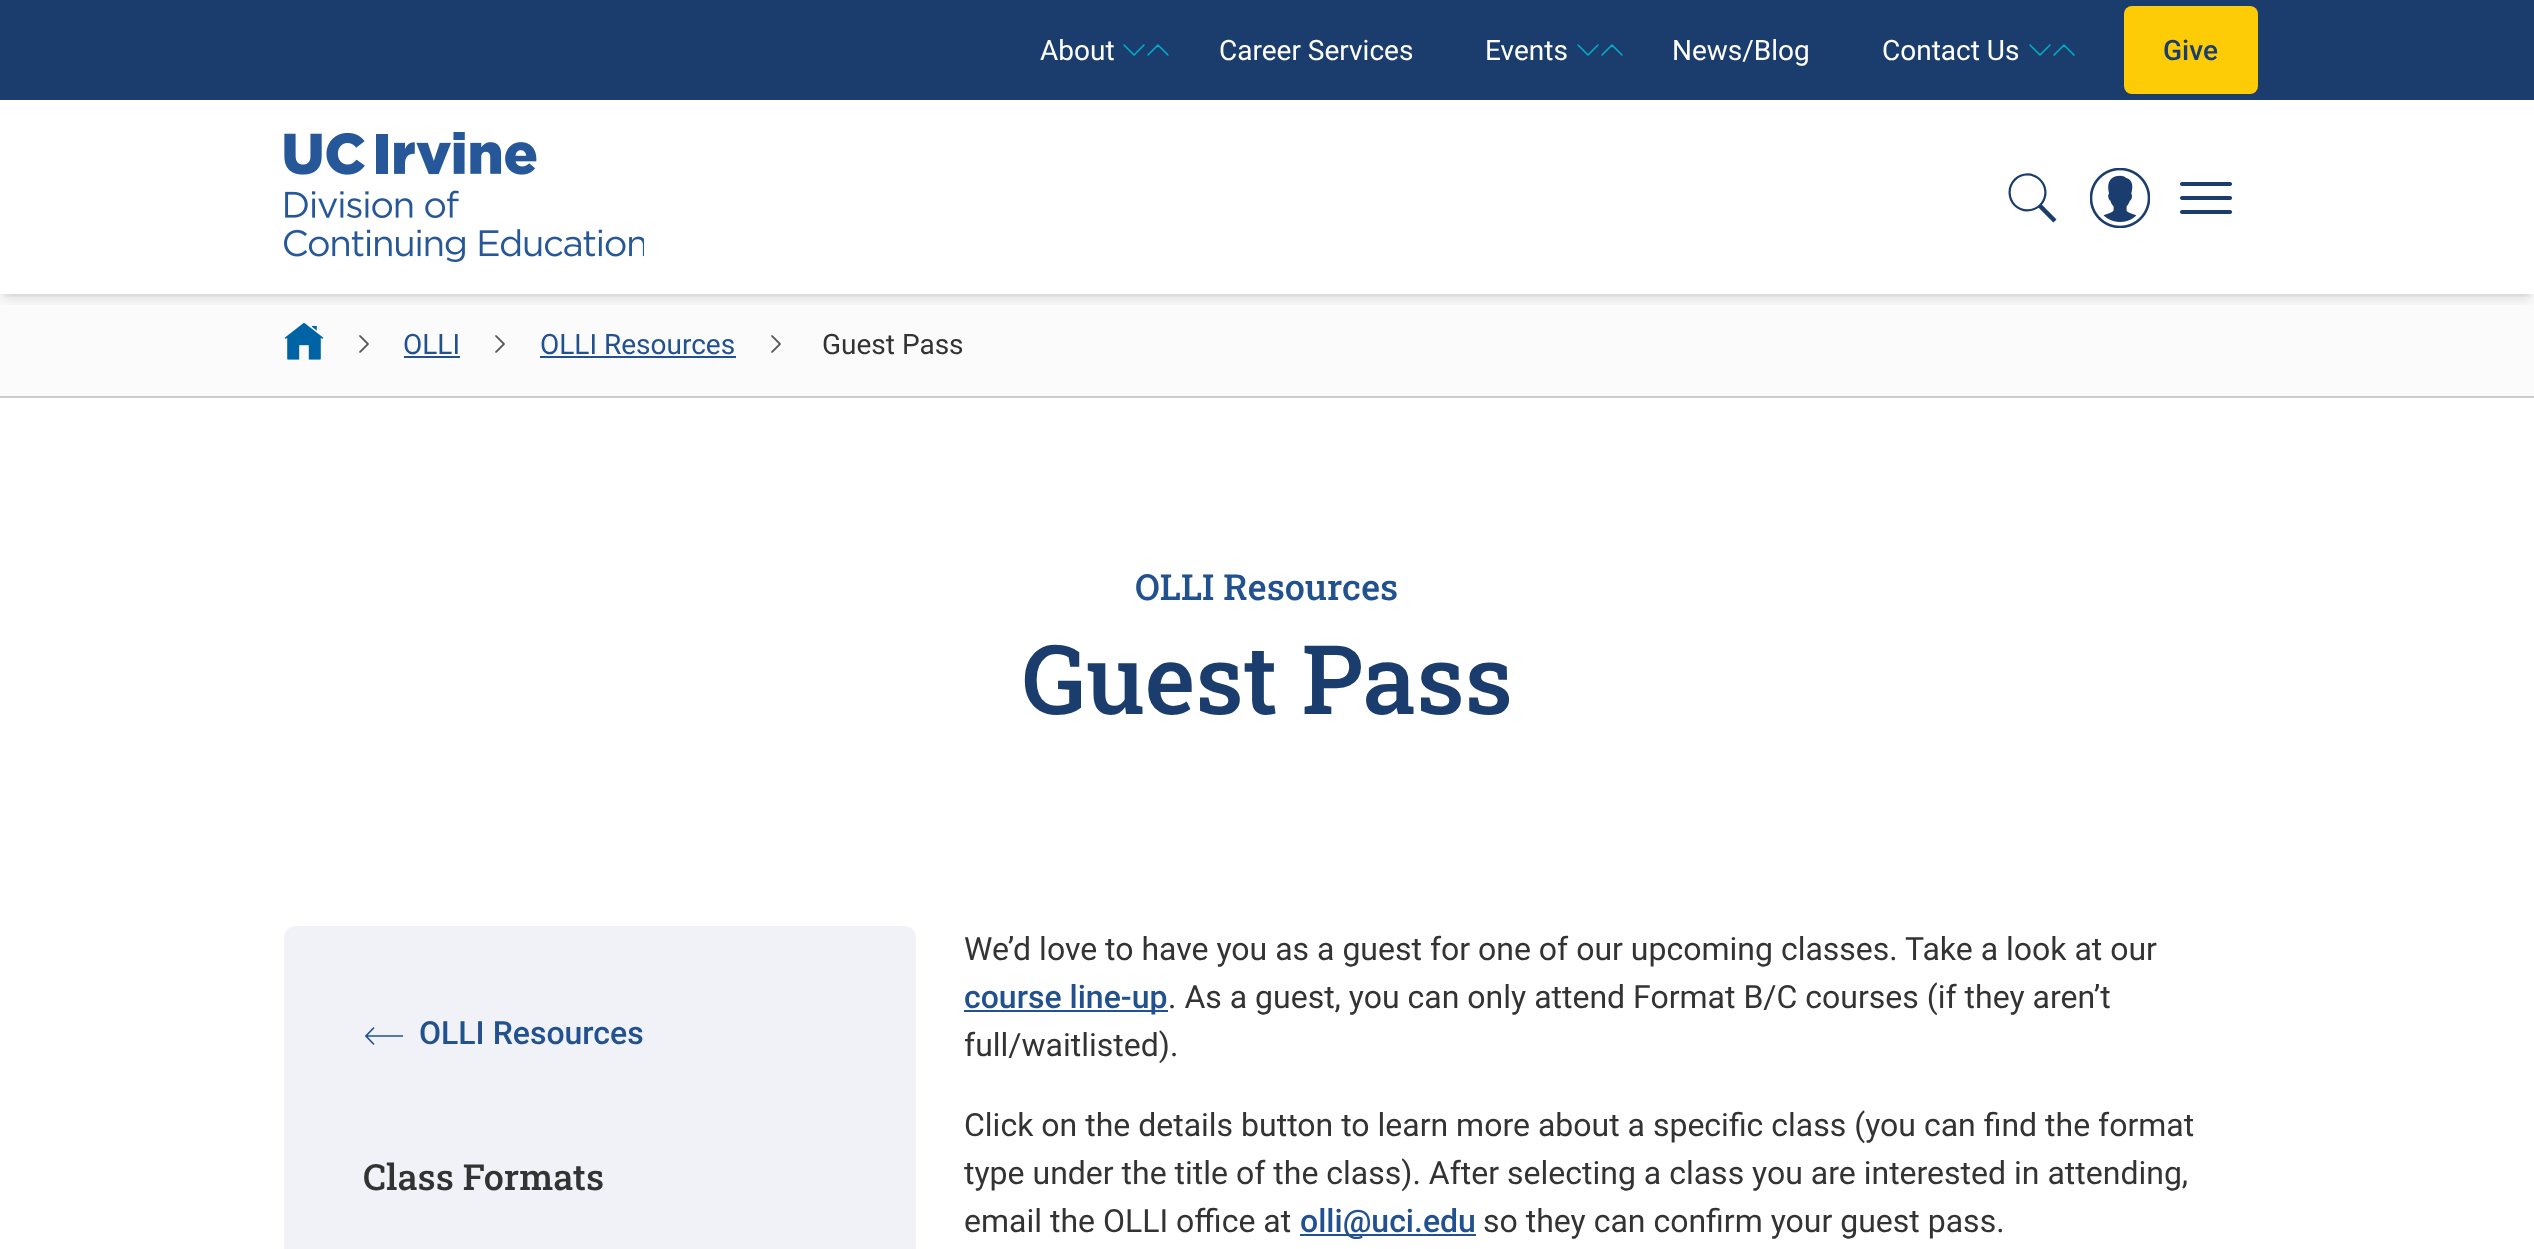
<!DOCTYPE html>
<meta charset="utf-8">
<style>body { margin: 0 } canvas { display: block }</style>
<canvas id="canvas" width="2534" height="1249"></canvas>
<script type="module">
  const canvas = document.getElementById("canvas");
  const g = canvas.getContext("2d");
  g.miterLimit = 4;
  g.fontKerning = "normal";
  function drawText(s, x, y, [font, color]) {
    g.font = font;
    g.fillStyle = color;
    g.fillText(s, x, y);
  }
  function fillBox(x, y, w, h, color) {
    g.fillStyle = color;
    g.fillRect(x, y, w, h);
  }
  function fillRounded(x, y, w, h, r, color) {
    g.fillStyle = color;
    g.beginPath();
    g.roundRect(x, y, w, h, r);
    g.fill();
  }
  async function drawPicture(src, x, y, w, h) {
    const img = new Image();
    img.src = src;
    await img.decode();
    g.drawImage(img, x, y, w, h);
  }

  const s1 = ["28px Roboto", "#FFFFFF"];
  const s2 = ["500 28px Roboto", "#1B3D6D"];
  const s3 = ["28px Roboto", "#22518F"];
  const s4 = ["28px Roboto", "#333333"];
  const s5 = ["500 36px Roboto Slab", "#22518F"];
  const s6 = ["500 96px Roboto Slab", "#1B3D6D"];
  const s7 = ["500 32px Roboto", "#22518F"];
  const s8 = ["500 36px Roboto Slab", "#333333"];
  const s9 = ["32px Roboto", "#333333"];

  fillBox(0, 0, 2534, 1249, "#FFFFFF");
  fillBox(0, 0, 2534, 100, "#1B3D6D");
  drawText("About", 1040, 60, s1);
  g.beginPath();
  g.moveTo(1144, 45);
  g.lineTo(1134, 55);
  g.lineTo(1124, 45);
  g.moveTo(1148, 55);
  g.lineTo(1158, 45);
  g.lineTo(1168, 55);
  g.strokeStyle = "#00B0CA";
  g.lineWidth = 1.5;
  g.lineCap = "round";
  g.lineJoin = "round";
  g.stroke();
  drawText("Career Services", 1219, 60, s1);
  drawText("Events", 1485, 60, s1);
  g.beginPath();
  g.moveTo(1598, 45);
  g.lineTo(1588, 55);
  g.lineTo(1578, 45);
  g.moveTo(1602, 55);
  g.lineTo(1612, 45);
  g.lineTo(1622, 55);
  g.stroke();
  drawText("News/Blog", 1672, 60, s1);
  drawText("Contact Us", 1882, 60, s1);
  g.beginPath();
  g.moveTo(2050, 45);
  g.lineTo(2040, 55);
  g.lineTo(2030, 45);
  g.moveTo(2054, 55);
  g.lineTo(2064, 45);
  g.lineTo(2074, 55);
  g.stroke();
  fillBox(0, 294, 2534, 102, "#FBFBFC");
  g.save();
  g.beginPath();
  g.rect(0, 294, 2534, 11);
  g.clip();
  g.fillStyle = "rgba(0, 0, 0, 0.1)";
  g.filter = "blur(6px)";
  g.beginPath();
  g.rect(2, 110, 2530, 190);
  g.fill();
  g.filter = "none";
  g.restore();
  fillRounded(2124, 6, 134, 88, 8, "#FECC07");
  drawText("Give", 2163, 60, s2);
  g.save();
  g.beginPath();
  g.rect(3, 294, 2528, 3);
  g.clip();
  g.fillStyle = "rgba(0, 0, 0, 0.1)";
  g.filter = "blur(4px)";
  g.beginPath();
  g.rect(4, 108, 2526, 186);
  g.fill();
  g.filter = "none";
  g.restore();
  await drawPicture("pic1.png", 284, 132, 360, 130);
  await drawPicture("pic2.png", 2008, 173, 49, 50);
  await drawPicture("pic3.png", 2090, 168, 60, 60);
  await drawPicture("pic4.png", 2180, 182, 52, 32);
  fillBox(0, 396, 2534, 2, "#CCCCCC");
  await drawPicture("pic5.png", 284, 322, 40, 38);
  await drawPicture("pic6.png", 359, 335, 10, 18);
  drawText("OLLI", 403, 354, s3);
  fillBox(404, 356, 56, 2, "#22518F");
  await drawPicture("pic6.png", 495, 335, 10, 18);
  drawText("OLLI Resources", 540, 354, s3);
  fillBox(540, 356, 196, 2, "#22518F");
  await drawPicture("pic6.png", 771, 335, 10, 18);
  drawText("Guest Pass", 822, 354, s4);
  drawText("OLLI Resources", 1135, 600, s5);
  drawText("Guest Pass", 1022, 714, s6);
  fillRounded(284, 926, 632, 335, 12, "#F0F2F7");
  await drawPicture("pic7.png", 365, 1027, 39, 18);
  drawText("OLLI Resources", 419, 1044, s7);
  drawText("Class Formats", 363, 1190, s8);
  drawText("We’d love to have you as a guest for one of our upcoming classes. Take a look at our", 964, 960, s9);
  fillBox(964, 1010, 204, 2, "#22518F");
  drawText("course line-up", 964, 1008, s7);
  drawText(". As a guest, you can only attend Format B/C courses (if they aren’t", 1168, 1008, s9);
  drawText("full/waitlisted).", 964, 1056, s9);
  drawText("Click on the details button to learn more about a specific class (you can find the format", 964, 1136, s9);
  drawText("type under the title of the class). After selecting a class you are interested in attending,", 964, 1184, s9);
  drawText("email the OLLI office at", 964, 1232, s9);
  fillBox(1300, 1234, 176, 2, "#22518F");
  drawText("olli@uci.edu", 1300, 1232, s7);
  drawText("so they can confirm your guest pass.", 1483, 1232, s9);
</script>
